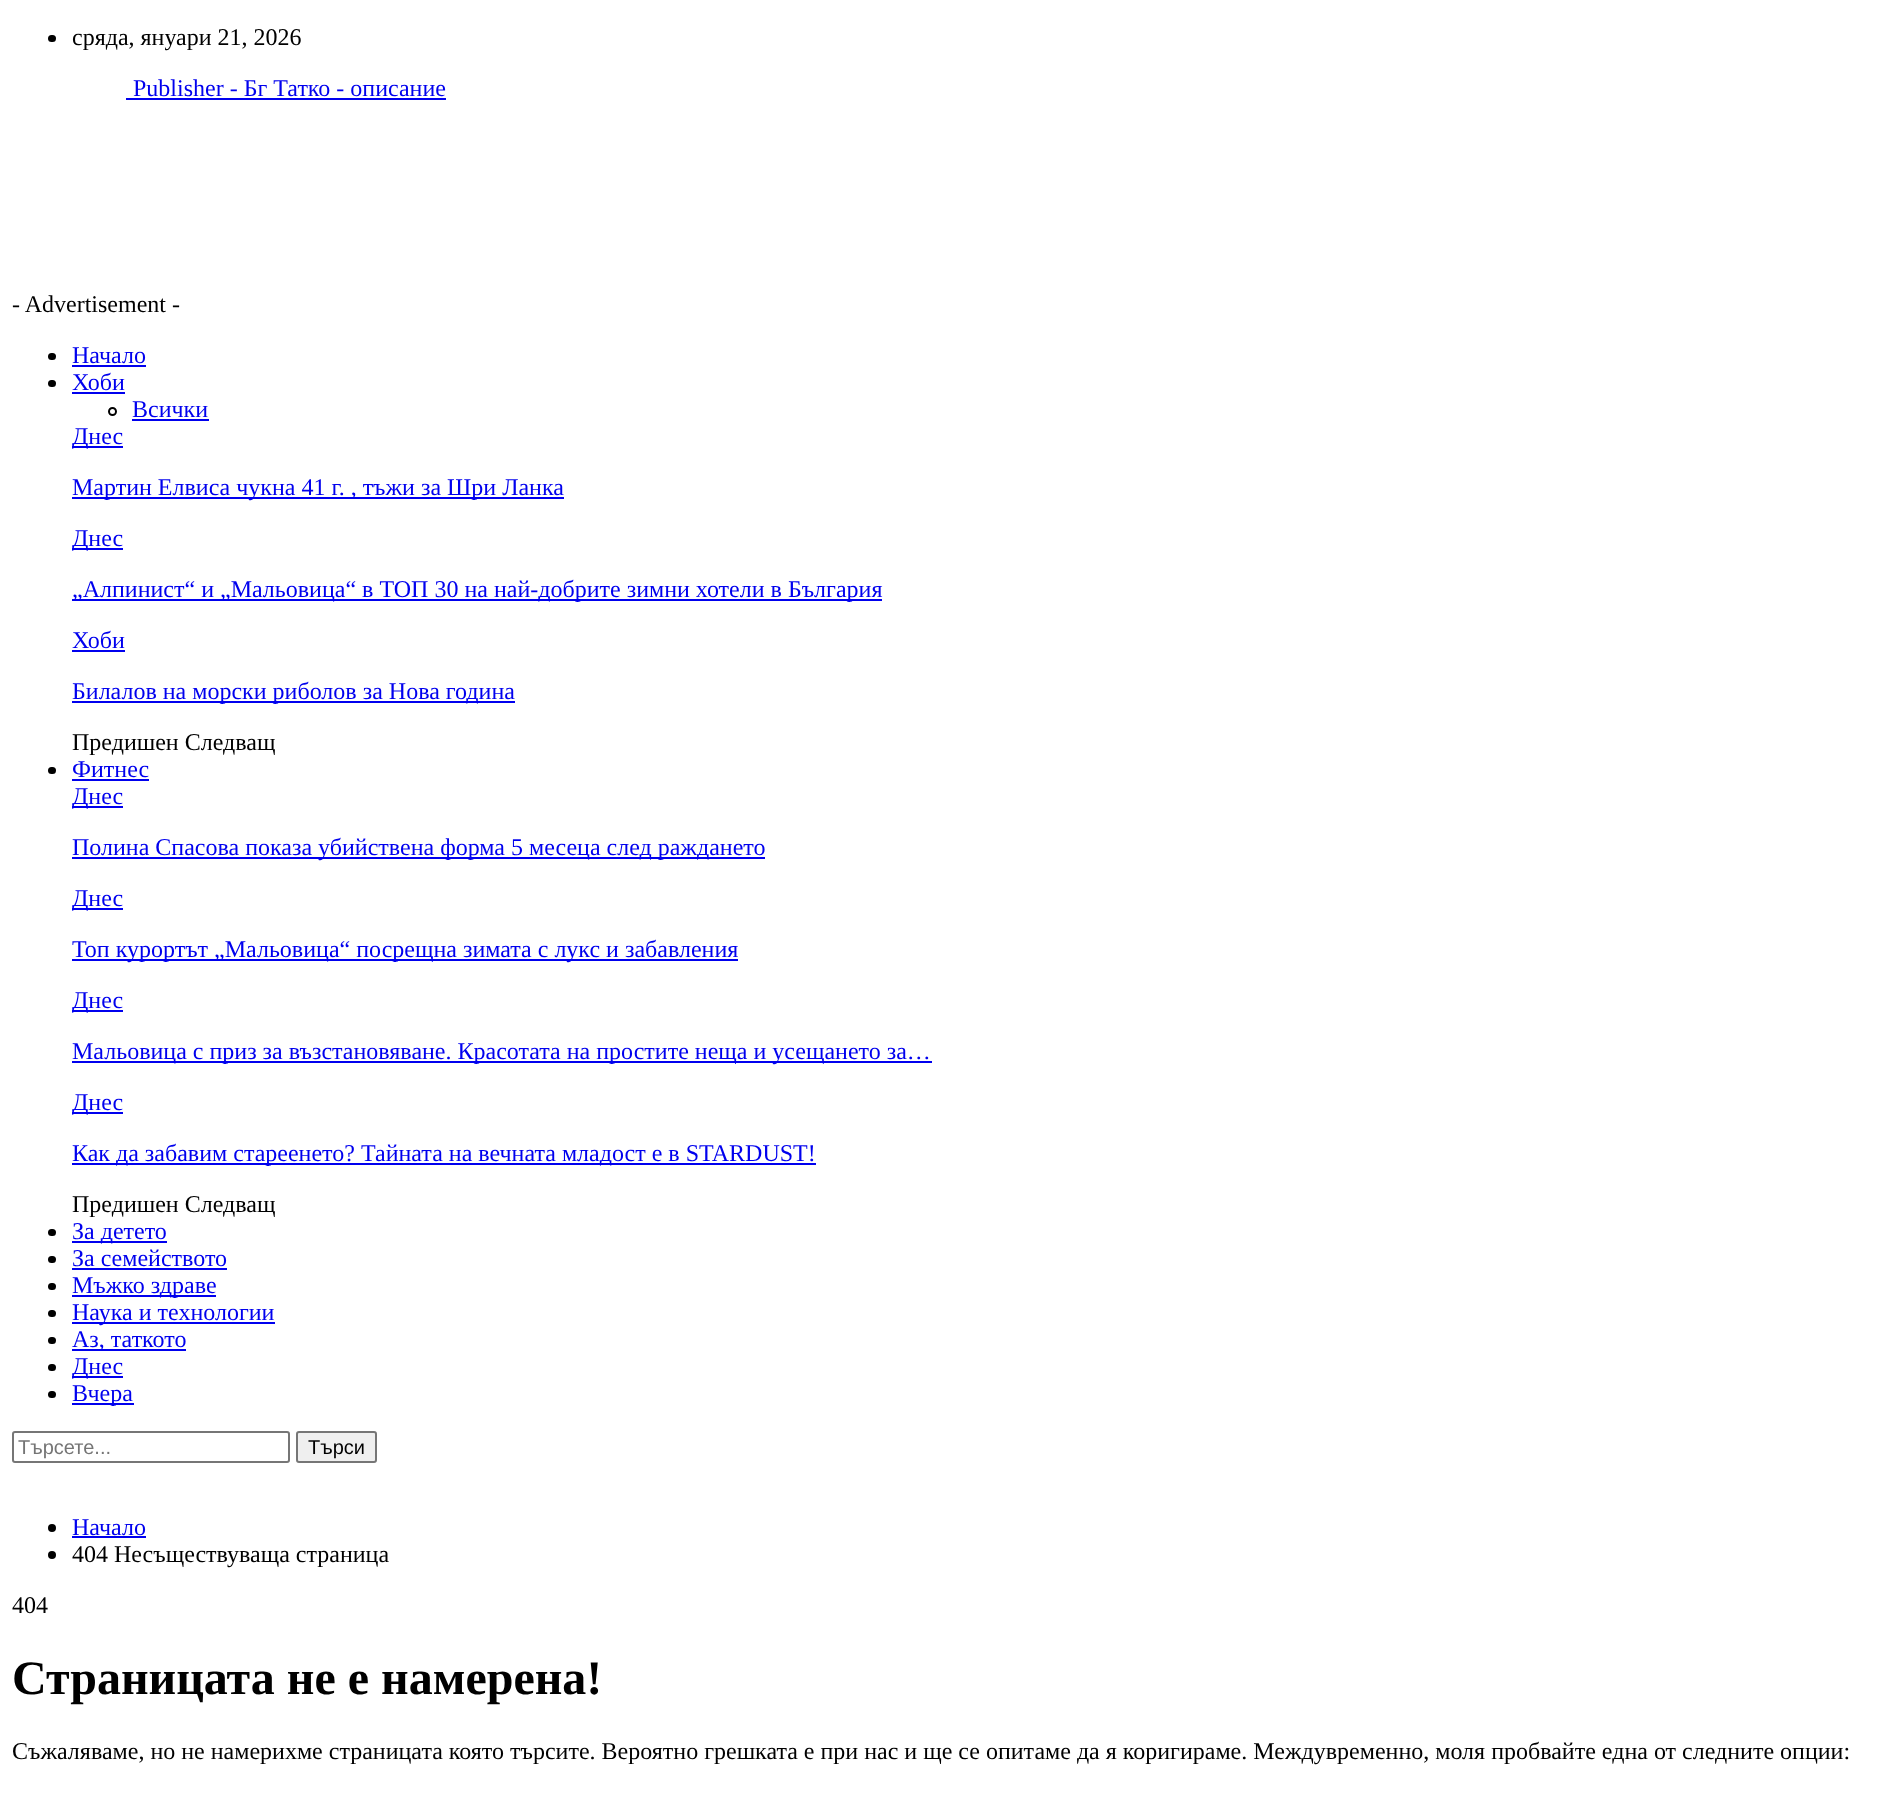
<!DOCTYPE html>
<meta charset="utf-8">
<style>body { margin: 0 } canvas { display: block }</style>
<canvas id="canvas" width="1884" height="1795"></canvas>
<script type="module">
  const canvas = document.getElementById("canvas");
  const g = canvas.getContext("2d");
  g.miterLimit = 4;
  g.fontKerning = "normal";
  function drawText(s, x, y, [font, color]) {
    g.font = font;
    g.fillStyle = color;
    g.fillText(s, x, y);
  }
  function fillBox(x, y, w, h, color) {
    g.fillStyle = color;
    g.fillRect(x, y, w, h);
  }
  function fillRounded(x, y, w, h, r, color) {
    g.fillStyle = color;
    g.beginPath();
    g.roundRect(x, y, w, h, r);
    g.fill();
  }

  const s1 = ["24px Liberation Serif", "#000000"];
  const s2 = ["24px Liberation Serif", "#0000EE"];
  const s3 = ["20px Liberation Sans", "#757575"];
  const s4 = ["20px Liberation Sans", "#000000"];
  const s5 = ["bold 48px Liberation Serif", "#000000"];

  fillBox(0, 0, 1884, 1795, "#FFFFFF");
  fillRounded(48, 35, 8, 7, 3.5, "#000000");
  drawText("сряда, януари 21, 2026", 72, 45, s1);
  drawText("Publisher - Бг Татко - описание", 133, 96, s2);
  fillBox(126, 98, 320, 2, "#0000EE");
  drawText("- Advertisement -", 12, 312, s1);
  fillRounded(48, 353, 8, 7, 3.5, "#000000");
  drawText("Начало", 72, 363, s2);
  fillBox(72, 365, 74, 2, "#0000EE");
  fillRounded(48, 380, 8, 7, 3.5, "#000000");
  drawText("Хоби", 72, 390, s2);
  fillBox(72, 392, 53, 2, "#0000EE");
  g.beginPath();
  g.arc(112.5, 411.5, 3.5, 0, Math.PI * 2);
  g.strokeStyle = "#000000";
  g.lineWidth = 2;
  g.stroke();
  drawText("Всички", 132, 417, s2);
  fillBox(132, 419, 77, 2, "#0000EE");
  fillBox(72, 446, 51, 2, "#0000EE");
  drawText("Днес", 72, 444, s2);
  fillBox(72, 497, 492, 2, "#0000EE");
  drawText("Мартин Елвиса чукна 41 г. , тъжи за Шри Ланка", 72, 495, s2);
  fillBox(72, 548, 51, 2, "#0000EE");
  drawText("Днес", 72, 546, s2);
  fillBox(72, 599, 810, 2, "#0000EE");
  drawText("„Алпинист“ и „Мальовица“ в ТОП 30 на най-добрите зимни хотели в България", 72, 597, s2);
  drawText("Хоби", 72, 648, s2);
  fillBox(72, 650, 53, 2, "#0000EE");
  fillBox(72, 701, 443, 2, "#0000EE");
  drawText("Билалов на морски риболов за Нова година", 72, 699, s2);
  drawText("Предишен Следващ", 72, 750, s1);
  fillRounded(48, 767, 8, 7, 3.5, "#000000");
  drawText("Фитнес", 72, 777, s2);
  fillBox(72, 779, 77, 2, "#0000EE");
  fillBox(72, 806, 51, 2, "#0000EE");
  drawText("Днес", 72, 804, s2);
  fillBox(72, 857, 693, 2, "#0000EE");
  drawText("Полина Спасова показа убийствена форма 5 месеца след раждането", 72, 855, s2);
  fillBox(72, 908, 51, 2, "#0000EE");
  drawText("Днес", 72, 906, s2);
  fillBox(72, 959, 666, 2, "#0000EE");
  drawText("Топ курортът „Мальовица“ посрещна зимата с лукс и забавления", 72, 957, s2);
  fillBox(72, 1010, 51, 2, "#0000EE");
  drawText("Днес", 72, 1008, s2);
  fillBox(72, 1061, 860, 2, "#0000EE");
  drawText("Мальовица с приз за възстановяване. Красотата на простите неща и усещането за…", 72, 1059, s2);
  fillBox(72, 1112, 51, 2, "#0000EE");
  drawText("Днес", 72, 1110, s2);
  fillBox(72, 1163, 744, 2, "#0000EE");
  drawText("Как да забавим стареенето? Тайната на вечната младост е в STARDUST!", 72, 1161, s2);
  drawText("Предишен Следващ", 72, 1212, s1);
  fillRounded(48, 1229, 8, 7, 3.5, "#000000");
  fillBox(72, 1241, 95, 2, "#0000EE");
  drawText("За детето", 72, 1239, s2);
  fillRounded(48, 1256, 8, 7, 3.5, "#000000");
  drawText("За семейството", 72, 1266, s2);
  fillBox(72, 1268, 155, 2, "#0000EE");
  fillRounded(48, 1283, 8, 7, 3.5, "#000000");
  fillBox(72, 1295, 144, 2, "#0000EE");
  drawText("Мъжко здраве", 72, 1293, s2);
  fillRounded(48, 1310, 8, 7, 3.5, "#000000");
  fillBox(72, 1322, 203, 2, "#0000EE");
  drawText("Наука и технологии", 72, 1320, s2);
  fillRounded(48, 1337, 8, 7, 3.5, "#000000");
  fillBox(72, 1349, 114, 2, "#0000EE");
  drawText("Аз, таткото", 72, 1347, s2);
  fillRounded(48, 1364, 8, 7, 3.5, "#000000");
  fillBox(72, 1376, 51, 2, "#0000EE");
  drawText("Днес", 72, 1374, s2);
  fillRounded(48, 1391, 8, 7, 3.5, "#000000");
  fillBox(72, 1403, 62, 2, "#0000EE");
  drawText("Вчера", 72, 1401, s2);
  g.beginPath();
  g.roundRect(13, 1432, 276, 30, 2);
  g.strokeStyle = "#767676";
  g.stroke();
  drawText("Търсете...", 18, 1454, s3);
  g.fillStyle = "#EFEFEF";
  g.beginPath();
  g.roundRect(297, 1432, 79, 30, 2);
  g.fill();
  g.stroke();
  drawText("Търси", 308, 1454, s4);
  g.beginPath();
  g.arc(52, 1528, 4, 0, Math.PI * 2);
  g.fill();
  drawText("Начало", 72, 1535, s2);
  fillBox(72, 1536, 74, 2, "#0000EE");
  g.fillStyle = "#000000";
  g.beginPath();
  g.arc(52, 1555, 4, 0, Math.PI * 2);
  g.fill();
  drawText("404 Несъществуваща страница", 72, 1562, s1);
  drawText("404", 12, 1613, s1);
  drawText("Страницата не е намерена!", 12, 1694, s5);
  drawText("Съжаляваме, но не намерихме страницата която търсите. Вероятно грешката е при нас и ще се опитаме да я коригираме. Междувременно, моля пробвайте една от следните опции:", 12, 1759, s1);
</script>
